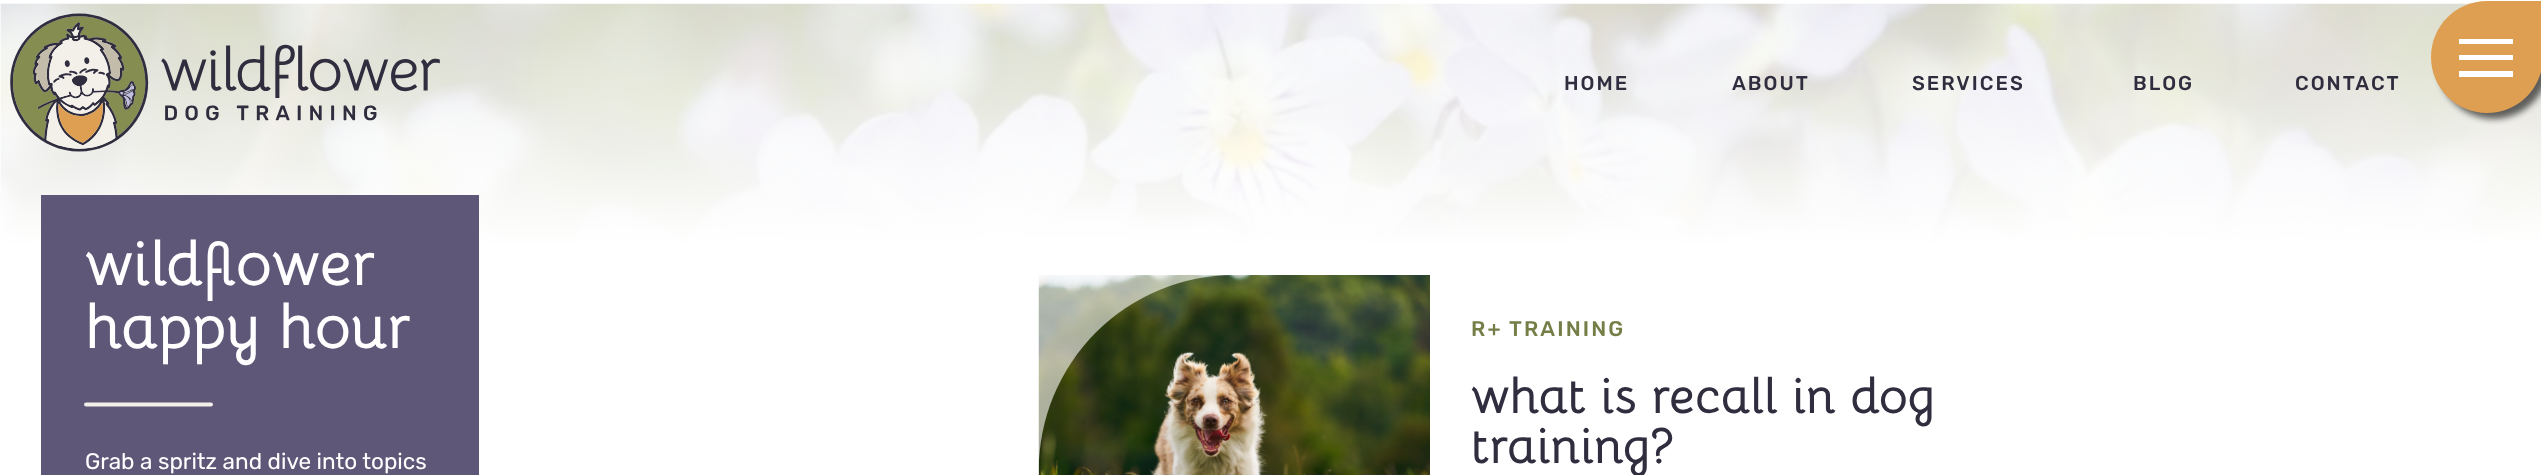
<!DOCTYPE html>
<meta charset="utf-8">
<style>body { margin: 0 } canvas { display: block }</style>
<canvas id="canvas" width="2541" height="475"></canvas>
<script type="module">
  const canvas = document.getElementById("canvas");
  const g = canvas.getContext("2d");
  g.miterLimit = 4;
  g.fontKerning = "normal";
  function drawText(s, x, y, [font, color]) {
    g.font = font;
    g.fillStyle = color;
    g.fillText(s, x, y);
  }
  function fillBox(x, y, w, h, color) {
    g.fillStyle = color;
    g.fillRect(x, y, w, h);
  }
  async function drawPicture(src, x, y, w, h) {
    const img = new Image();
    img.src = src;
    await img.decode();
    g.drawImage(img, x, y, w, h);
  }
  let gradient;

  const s1 = ["500 20px Rubik", "#302D3F"];
  const s2 = ["bold 62.5px Bellota", "#FFFFFF"];
  const s3 = ["22.5px Rubik", "#FFFFFF"];
  const s4 = ["500 21.25px Rubik", "#767E47"];
  const s5 = ["bold 50px Bellota", "#302D3F"];

  fillBox(0, 0, 2541, 475, "#FFFFFF");
  await drawPicture("pic1.png", 0, 3, 2541, 240);
  gradient = g.createLinearGradient(1271, -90, 1271, 245);
  gradient.addColorStop(0, "rgba(255, 255, 255, 0)");
  gradient.addColorStop(1, "#FFFFFF");
  g.fillStyle = gradient;
  g.fillRect(0, 3, 2541, 240);
  g.fillStyle = "rgba(0, 0, 0, 0.6)";
  g.filter = "blur(3px)";
  g.beginPath();
  g.roundRect(2438, 8, 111, 111, 55.5);
  g.fill();
  g.filter = "none";
  g.fillStyle = "#DE9F52";
  g.beginPath();
  g.moveTo(2487, 1);
  g.lineTo(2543, 1);
  g.lineTo(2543, 57);
  g.bezierCurveTo(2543, 88, 2518, 113, 2487, 113);
  g.bezierCurveTo(2456, 113, 2431, 88, 2431, 57);
  g.bezierCurveTo(2431, 26, 2456, 1, 2487, 1);
  g.closePath();
  g.fill();
  g.fillStyle = "#FFFFFF";
  g.beginPath();
  g.moveTo(2459, 55);
  g.lineTo(2513, 55);
  g.lineTo(2513, 60);
  g.lineTo(2459, 60);
  g.closePath();
  g.moveTo(2459, 39);
  g.lineTo(2513, 39);
  g.lineTo(2513, 44);
  g.lineTo(2459, 44);
  g.closePath();
  g.moveTo(2459, 71);
  g.lineTo(2513, 71);
  g.lineTo(2513, 77);
  g.lineTo(2459, 77);
  g.closePath();
  g.fill();
  await drawPicture("pic2.png", 10, 13, 430, 139);
  g.letterSpacing = "2px";
  drawText("HOME", 1564, 90, s1);
  drawText("ABOUT", 1732, 90, s1);
  drawText("BLOG", 2133, 90, s1);
  drawText("CONTACT", 2295, 90, s1);
  drawText("SERVICES", 1912, 90, s1);
  fillBox(41, 195, 438, 280, "#5F5778");
  g.letterSpacing = "0px";
  drawText("wildflower", 85, 285, s2);
  drawText("happy hour", 85, 348, s2);
  g.beginPath();
  g.moveTo(86, 404.5);
  g.lineTo(211, 404.5);
  g.strokeStyle = "#F3F0E9";
  g.lineWidth = 3.8;
  g.lineCap = "round";
  g.stroke();
  drawText("Grab a spritz and dive into topics", 85, 469, s3);
  await drawPicture("pic3.png", 1038, 275, 392, 200);
  await drawPicture("pic4.png", 1038, 275, 392, 200);
  g.letterSpacing = "2.1px";
  drawText("R+ TRAINING", 1471, 336, s4);
  g.letterSpacing = "0px";
  drawText("what is recall in dog", 1471, 413, s5);
  drawText("training?", 1471, 463, s5);
</script>
